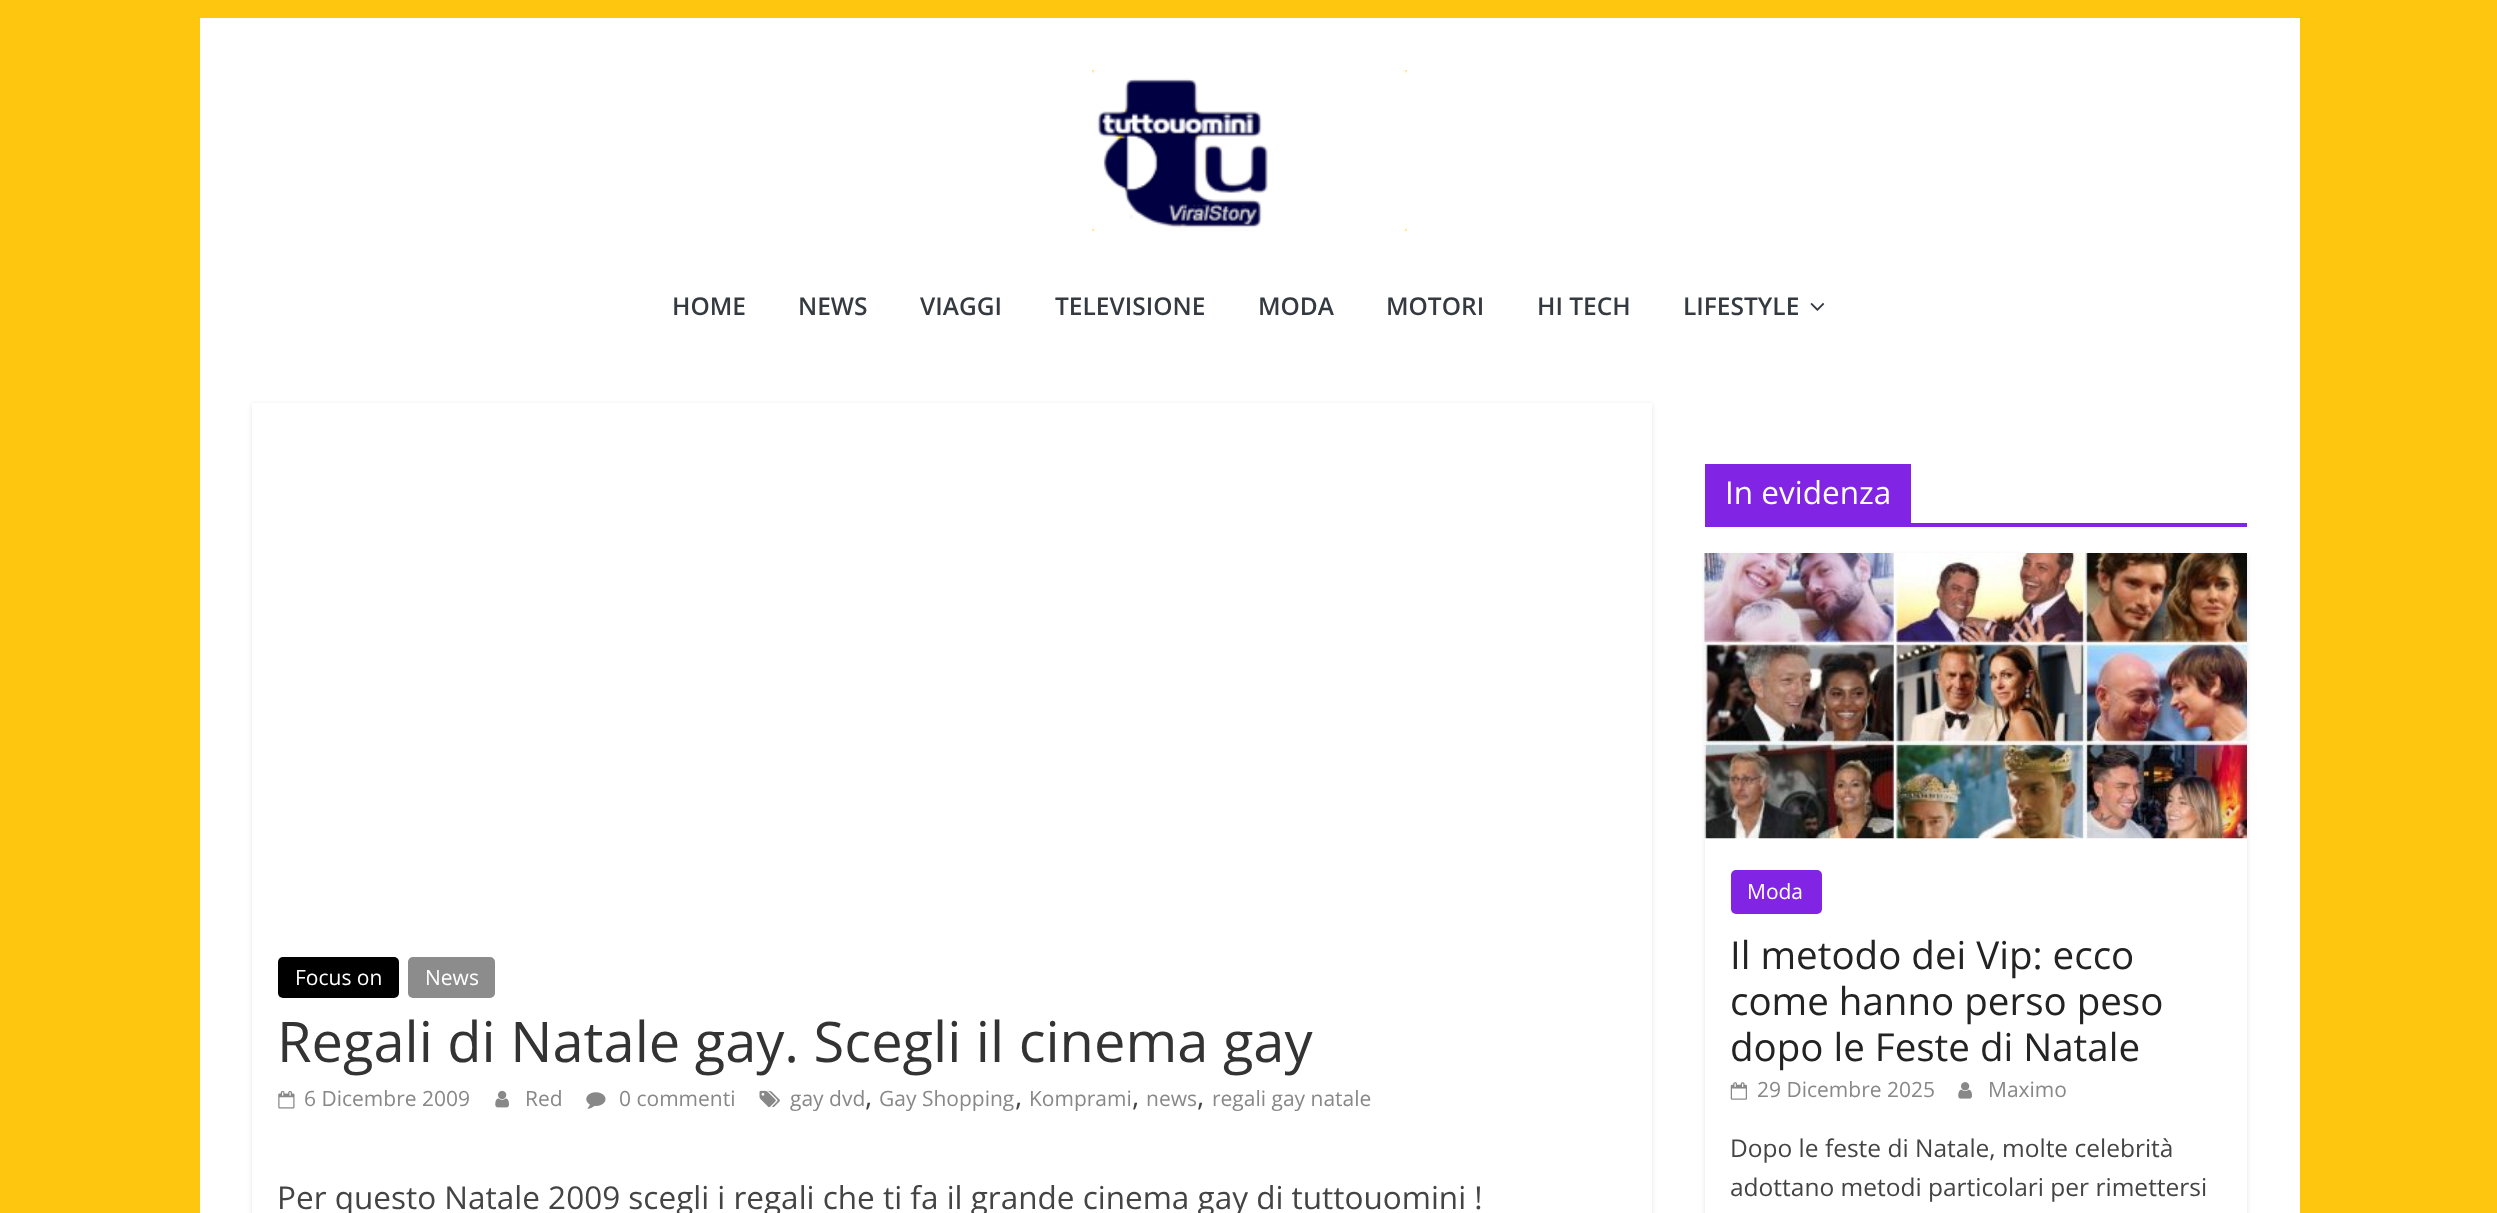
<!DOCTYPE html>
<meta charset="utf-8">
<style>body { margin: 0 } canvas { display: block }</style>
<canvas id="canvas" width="2497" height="1213"></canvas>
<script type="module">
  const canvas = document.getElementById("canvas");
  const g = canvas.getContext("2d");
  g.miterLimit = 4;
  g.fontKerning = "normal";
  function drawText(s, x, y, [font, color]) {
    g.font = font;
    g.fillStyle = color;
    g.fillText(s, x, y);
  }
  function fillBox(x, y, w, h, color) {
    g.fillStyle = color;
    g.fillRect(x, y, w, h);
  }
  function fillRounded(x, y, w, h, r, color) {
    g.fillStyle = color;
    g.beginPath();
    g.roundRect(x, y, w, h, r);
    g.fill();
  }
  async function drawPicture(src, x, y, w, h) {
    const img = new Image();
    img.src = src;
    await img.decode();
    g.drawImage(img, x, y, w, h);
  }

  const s1 = ["600 24.5px Open Sans", "#343A40"];
  const s2 = ["21px Open Sans", "#FFFFFF"];
  const s3 = ["56px Open Sans", "#333333"];
  const s4 = ["21px Open Sans", "#888888"];
  const s5 = ["28px Open Sans", "#444444"];
  const s6 = ["31.5px Open Sans", "#444444"];
  const s7 = ["31.5px Open Sans", "#FFFFFF"];
  const s8 = ["38.5px Open Sans", "#232323"];
  const s9 = ["24.5px Open Sans", "#444444"];

  fillBox(0, 0, 2497, 1213, "#FFC610");
  fillBox(200, 18, 2100, 1195, "#FFFFFF");
  await drawPicture("pic1.png", 1092, 70, 315, 161);
  drawText("HOME", 672, 315, s1);
  drawText("NEWS", 798, 315, s1);
  drawText("VIAGGI", 920, 315, s1);
  drawText("TELEVISIONE", 1055, 315, s1);
  drawText("MODA", 1258, 315, s1);
  drawText("MOTORI", 1386, 315, s1);
  drawText("HI TECH", 1537, 315, s1);
  drawText("LIFESTYLE", 1683, 315, s1);
  await drawPicture("pic2.png", 1810, 303, 15, 8);
  g.save();
  g.beginPath();
  g.moveTo(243, 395);
  g.lineTo(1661, 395);
  g.lineTo(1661, 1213);
  g.lineTo(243, 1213);
  g.closePath();
  g.moveTo(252, 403);
  g.lineTo(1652, 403);
  g.lineTo(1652, 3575);
  g.lineTo(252, 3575);
  g.closePath();
  g.clip("evenodd");
  g.fillStyle = "rgba(0, 0, 0, 0.1)";
  g.filter = "blur(2.5px)";
  g.beginPath();
  g.rect(252, 404, 1400, 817);
  g.fill();
  g.filter = "none";
  g.restore();
  fillRounded(278, 957, 121, 41, 5, "#000000");
  drawText("Focus on", 295, 985, s2);
  fillRounded(408, 957, 87, 41, 5, "#8C8C8C");
  drawText("News", 425, 985, s2);
  drawText("Regali di Natale gay. Scegli il cinema gay", 277, 1062, s3);
  await drawPicture("pic3.png", 278, 1091, 17, 18);
  drawText("6 Dicembre 2009", 304, 1106, s4);
  await drawPicture("pic4.png", 495, 1090, 14, 18);
  drawText("Red", 525, 1106, s4);
  await drawPicture("pic5.png", 586, 1092, 20, 17);
  drawText("0 commenti", 619, 1106, s4);
  await drawPicture("pic6.png", 759, 1090, 21, 18);
  drawText("gay dvd", 790, 1106, s4);
  drawText(",", 865, 1106, s5);
  drawText("Gay Shopping", 879, 1106, s4);
  drawText(",", 1015, 1106, s5);
  drawText("Komprami", 1029, 1106, s4);
  drawText(",", 1132, 1106, s5);
  drawText("news", 1146, 1106, s4);
  drawText(",", 1197, 1106, s5);
  drawText("regali gay natale", 1212, 1106, s4);
  drawText("Per questo Natale 2009 scegli i regali che ti fa il grande cinema gay di tuttouomini !", 277, 1209, s6);
  fillBox(1705, 523, 542, 4, "#8224E3");
  fillBox(1705, 464, 206, 59, "#8224E3");
  drawText("In evidenza", 1725, 504, s7);
  g.save();
  g.beginPath();
  g.moveTo(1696, 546);
  g.lineTo(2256, 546);
  g.lineTo(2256, 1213);
  g.lineTo(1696, 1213);
  g.closePath();
  g.moveTo(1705, 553);
  g.lineTo(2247, 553);
  g.lineTo(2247, 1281);
  g.lineTo(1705, 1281);
  g.closePath();
  g.clip("evenodd");
  g.fillStyle = "rgba(0, 0, 0, 0.1)";
  g.filter = "blur(2.5px)";
  g.beginPath();
  g.rect(1705, 555, 542, 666);
  g.fill();
  g.filter = "none";
  g.restore();
  await drawPicture("pic7.png", 1704, 553, 543, 286);
  fillRounded(1731, 870, 91, 44, 5, "#8224E3");
  drawText("Moda", 1747, 899, s2);
  drawText("Il metodo dei Vip: ecco", 1730, 969, s8);
  drawText("come hanno perso peso", 1730, 1015, s8);
  drawText("dopo le Feste di Natale", 1730, 1061, s8);
  await drawPicture("pic8.png", 1730, 1082, 17, 18);
  drawText("29 Dicembre 2025", 1757, 1097, s4);
  await drawPicture("pic9.png", 1958, 1082, 14, 17);
  drawText("Maximo", 1988, 1097, s4);
  drawText("Dopo le feste di Natale, molte celebrità", 1730, 1157, s9);
  drawText("adottano metodi particolari per rimettersi", 1730, 1196, s9);
</script>
